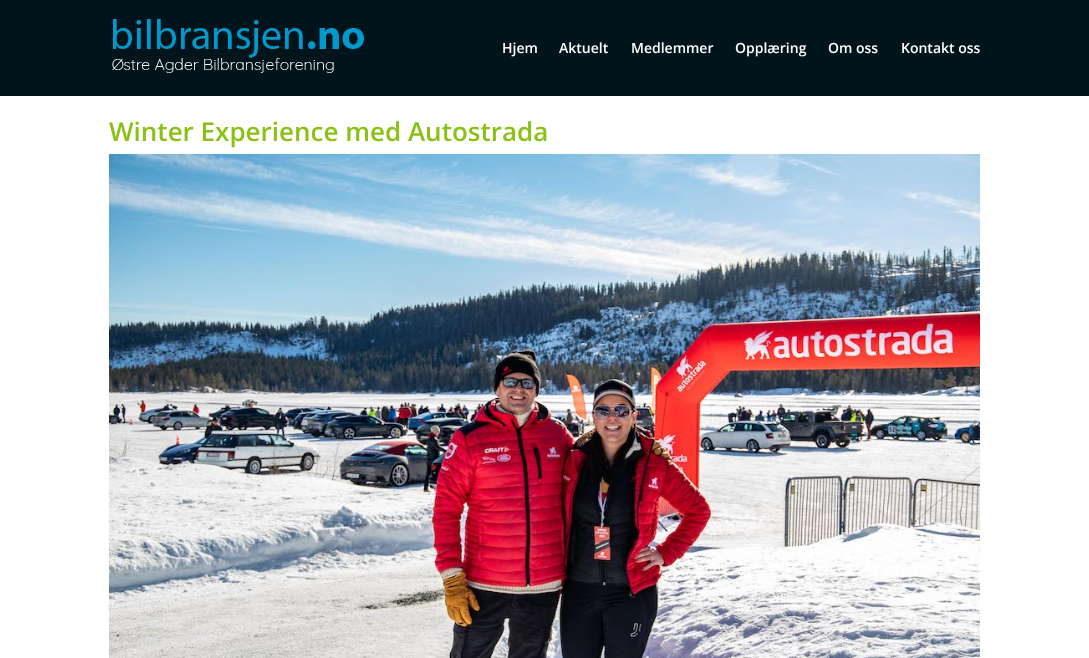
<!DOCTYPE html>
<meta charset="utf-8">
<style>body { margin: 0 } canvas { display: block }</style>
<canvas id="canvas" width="1089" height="658"></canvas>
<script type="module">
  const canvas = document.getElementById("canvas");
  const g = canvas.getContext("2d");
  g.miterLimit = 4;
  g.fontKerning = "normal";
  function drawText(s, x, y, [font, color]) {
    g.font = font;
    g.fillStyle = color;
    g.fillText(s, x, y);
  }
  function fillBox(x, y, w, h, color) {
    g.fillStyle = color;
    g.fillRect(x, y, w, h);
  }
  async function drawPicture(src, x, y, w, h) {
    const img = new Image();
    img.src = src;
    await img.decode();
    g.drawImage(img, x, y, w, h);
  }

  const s1 = ["600 14px Open Sans", "#FFFFFF"];
  const s2 = ["600 26px Open Sans", "#8BC016"];

  fillBox(0, 0, 1089, 658, "#FFFFFF");
  fillBox(0, 0, 1089, 96, "#00141B");
  await drawPicture("pic1.png", 112, 19, 252, 54);
  drawText("Hjem", 502, 53, s1);
  drawText("Aktuelt", 559, 53, s1);
  drawText("Medlemmer", 631, 53, s1);
  drawText("Opplæring", 735, 53, s1);
  drawText("Om oss", 828, 53, s1);
  drawText("Kontakt oss", 901, 53, s1);
  drawText("Winter Experience med Autostrada", 109, 141, s2);
  await drawPicture("pic2.png", 109, 154, 871, 504);
</script>
